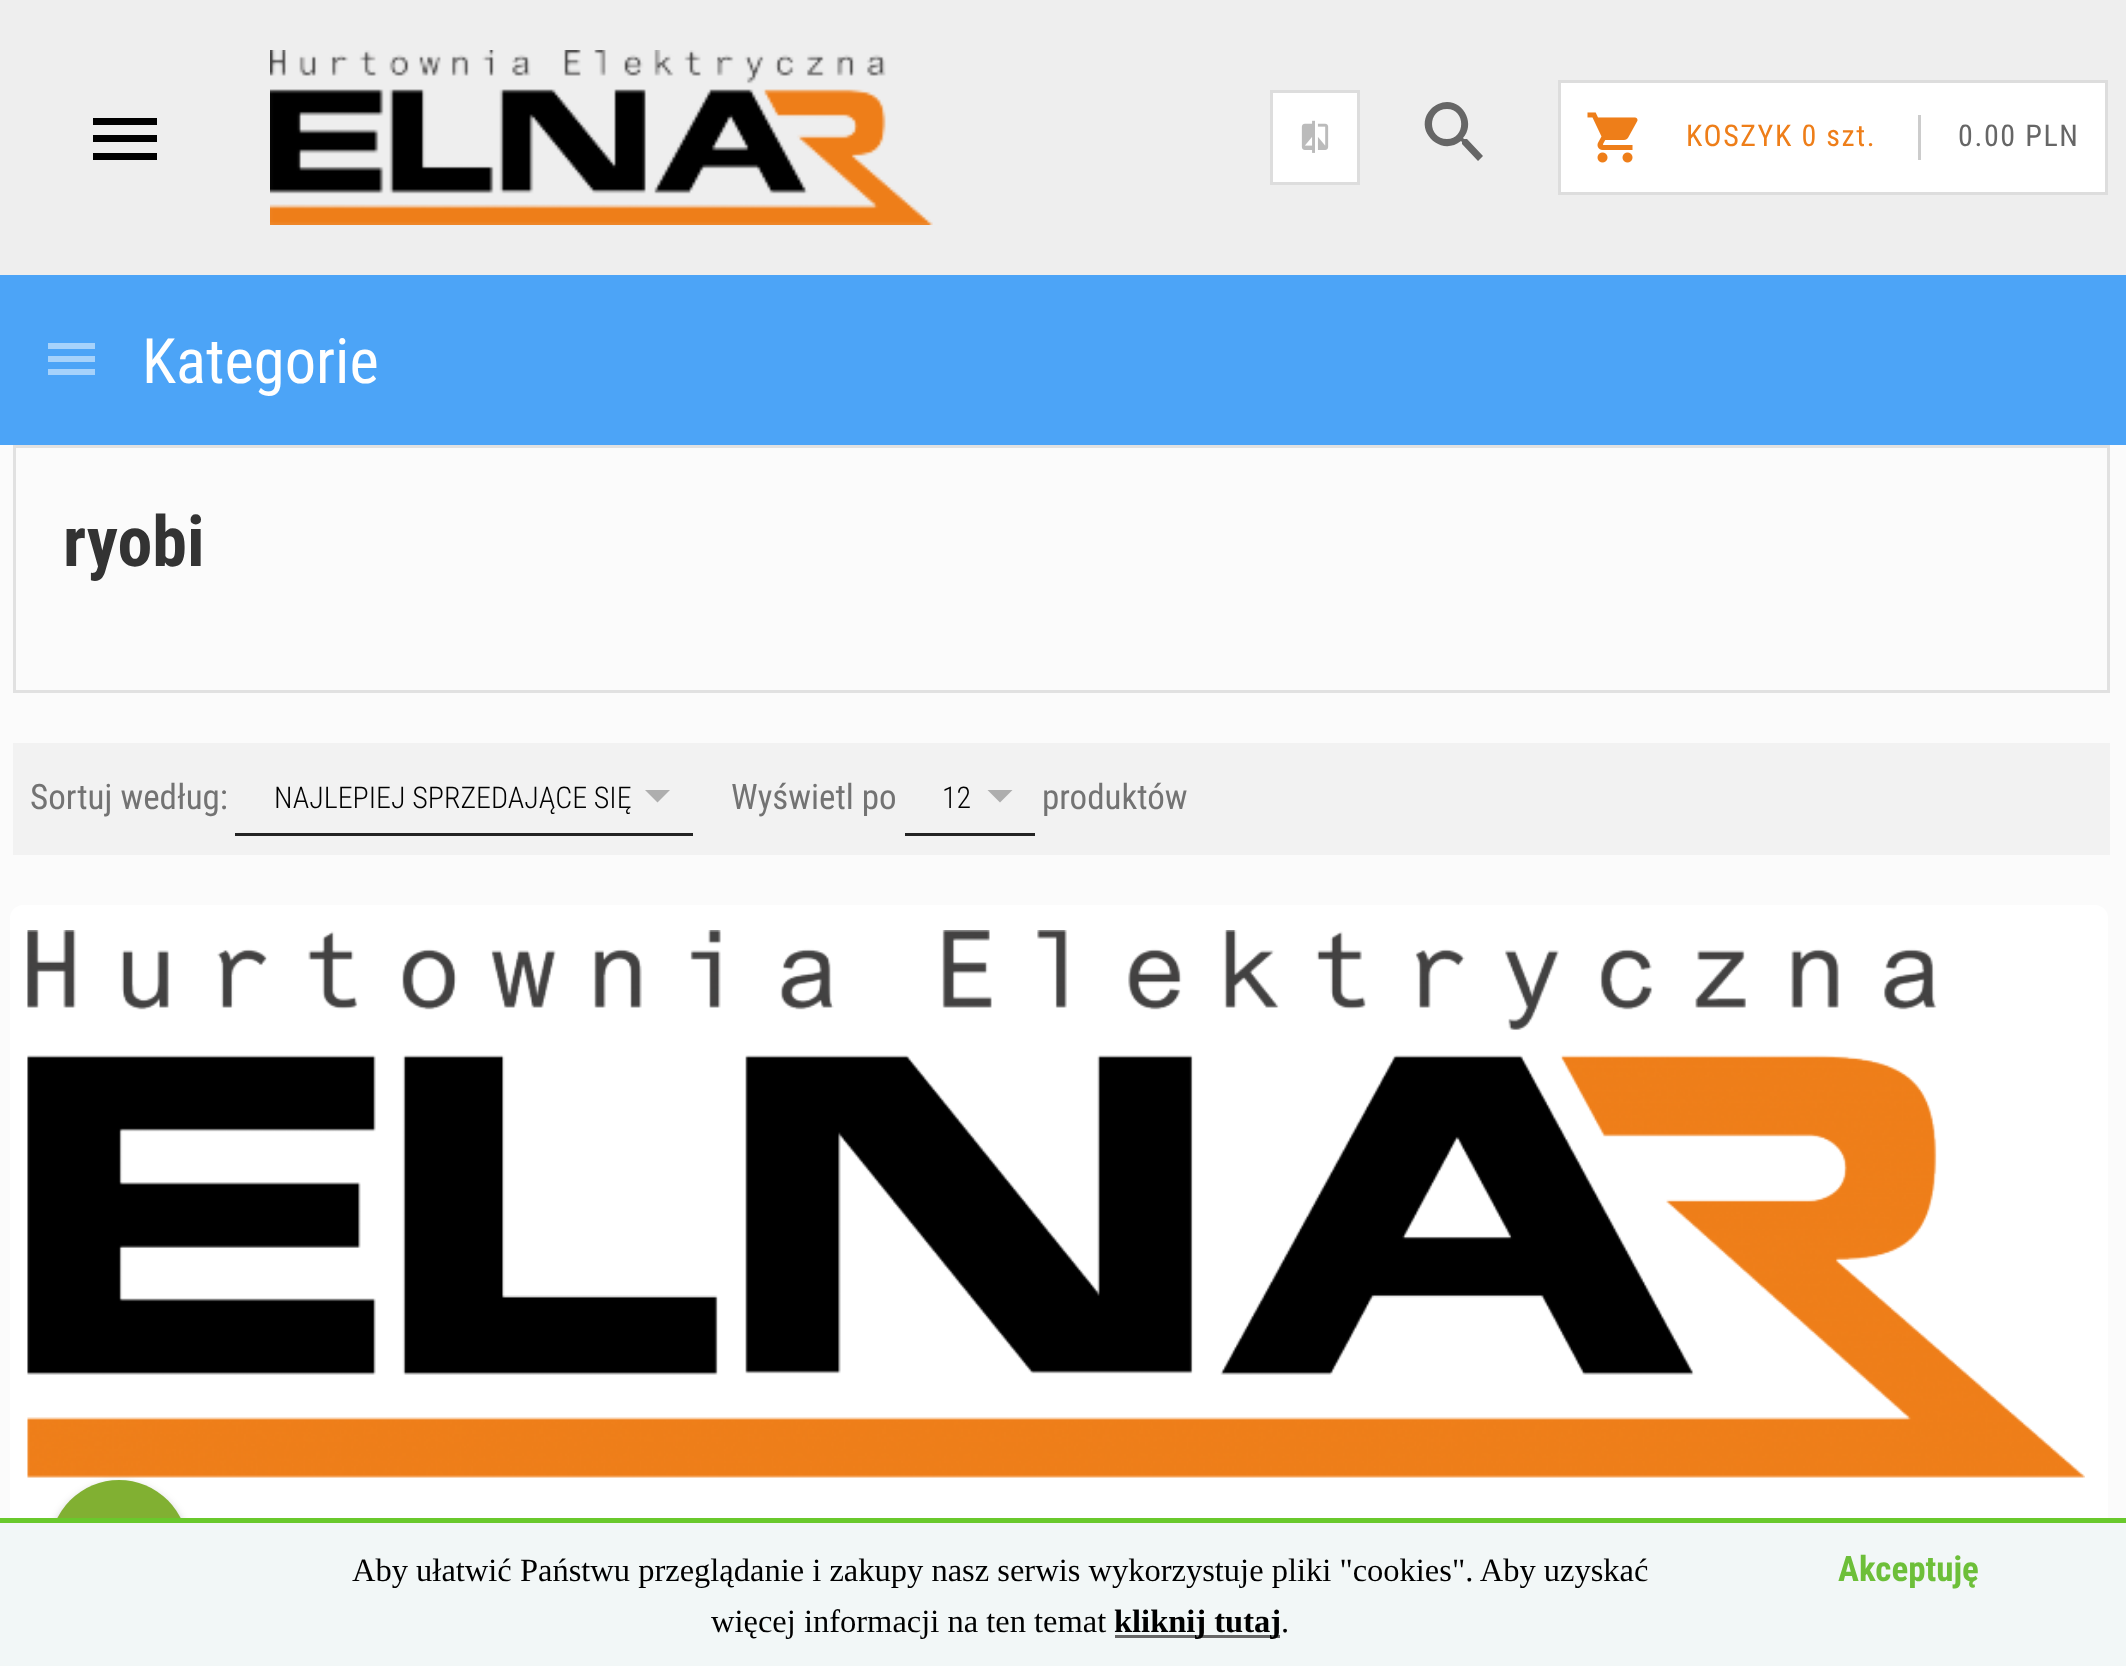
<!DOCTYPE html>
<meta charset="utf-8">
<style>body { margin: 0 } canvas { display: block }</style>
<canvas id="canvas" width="2126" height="1666"></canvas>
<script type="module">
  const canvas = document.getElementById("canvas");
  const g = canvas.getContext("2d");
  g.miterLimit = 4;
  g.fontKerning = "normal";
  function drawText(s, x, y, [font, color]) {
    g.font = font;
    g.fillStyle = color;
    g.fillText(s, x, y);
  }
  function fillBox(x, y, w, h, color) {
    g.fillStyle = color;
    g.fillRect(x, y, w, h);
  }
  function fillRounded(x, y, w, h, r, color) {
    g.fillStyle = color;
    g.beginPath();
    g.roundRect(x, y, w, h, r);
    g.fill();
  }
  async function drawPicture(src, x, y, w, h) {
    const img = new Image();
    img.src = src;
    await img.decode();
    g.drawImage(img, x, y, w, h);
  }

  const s1 = ["30px Roboto Condensed", "#EE7E19"];
  const s2 = ["30px Roboto Condensed", "#666666"];
  const s3 = ["62.5px Roboto Condensed", "#FFFFFF"];
  const s4 = ["bold 70px Roboto Condensed", "#333333"];
  const s5 = ["35px Roboto Condensed", "#737373"];
  const s6 = ["300 30px Roboto Condensed", "#000000"];
  const s7 = ["32.5px Liberation Serif", "#000000"];
  const s8 = ["bold 32.5px Liberation Serif", "#000000"];
  const s9 = ["bold 35px Roboto Condensed", "#6DBF39"];

  fillBox(0, 0, 2126, 1666, "#FBFBFB");
  fillBox(0, 0, 2126, 275, "#EEEEEE");
  g.fillStyle = "#000000";
  g.beginPath();
  g.moveTo(93, 118);
  g.lineTo(157, 118);
  g.lineTo(157, 125);
  g.lineTo(93, 125);
  g.closePath();
  g.moveTo(93, 135);
  g.lineTo(157, 135);
  g.lineTo(157, 142);
  g.lineTo(93, 142);
  g.closePath();
  g.moveTo(93, 153);
  g.lineTo(157, 153);
  g.lineTo(157, 160);
  g.lineTo(93, 160);
  g.closePath();
  g.fill();
  await drawPicture("pic1.png", 270, 50, 663, 175);
  g.fillStyle = "#FFFFFF";
  g.beginPath();
  g.rect(1271.5, 91.5, 87, 92);
  g.fill();
  g.strokeStyle = "#DDDDDD";
  g.lineWidth = 3;
  g.stroke();
  await drawPicture("pic2.png", 1301, 120, 28, 33);
  g.fillStyle = "#666666";
  g.beginPath();
  g.moveTo(1447, 102);
  g.bezierCurveTo(1465, 102, 1475, 125, 1463, 138);
  g.lineTo(1464, 139);
  g.lineTo(1467, 139);
  g.lineTo(1483, 156);
  g.lineTo(1478, 161);
  g.lineTo(1462, 144);
  g.lineTo(1462, 142);
  g.lineTo(1461, 141);
  g.bezierCurveTo(1440, 158, 1412, 129, 1431, 109);
  g.bezierCurveTo(1435, 105, 1441, 102, 1447, 102);
  g.closePath();
  g.moveTo(1447, 109);
  g.bezierCurveTo(1427, 109, 1427, 139, 1447, 139);
  g.bezierCurveTo(1466, 139, 1466, 109, 1447, 109);
  g.closePath();
  g.fill();
  g.fillStyle = "#FFFFFF";
  g.beginPath();
  g.rect(1559.5, 81.5, 547, 112);
  g.fill();
  g.stroke();
  await drawPicture("pic3.png", 1587, 112, 51, 51);
  g.letterSpacing = "1.6px";
  drawText("KOSZYK 0 szt.", 1686, 146, s1);
  fillBox(1918, 115, 3, 45, "#CCCCCC");
  drawText("0.00 PLN", 1958, 146, s2);
  fillBox(0, 275, 2126, 170, "#4CA4F7");
  g.fillStyle = "#A6D2FB";
  g.beginPath();
  g.moveTo(48, 343);
  g.lineTo(95, 343);
  g.lineTo(95, 349);
  g.lineTo(48, 349);
  g.closePath();
  g.moveTo(48, 356);
  g.lineTo(95, 356);
  g.lineTo(95, 362);
  g.lineTo(48, 362);
  g.closePath();
  g.moveTo(48, 369);
  g.lineTo(95, 369);
  g.lineTo(95, 375);
  g.lineTo(48, 375);
  g.closePath();
  g.fill();
  g.letterSpacing = "0px";
  drawText("Kategorie", 142, 383, s3);
  g.strokeStyle = "#E1E1E1";
  g.strokeRect(14.5, 446.5, 2094, 245);
  drawText("ryobi", 63, 566, s4);
  fillBox(13, 743, 2097, 112, "#F2F2F2");
  drawText("Sortuj według:", 30, 809, s5);
  fillBox(235, 833, 458, 3, "#242424");
  drawText("NAJLEPIEJ SPRZEDAJĄCE SIĘ", 274, 808, s6);
  g.fillStyle = "#AEAEAE";
  g.beginPath();
  g.moveTo(645, 790);
  g.lineTo(670, 790);
  g.lineTo(657.5, 802.5);
  g.closePath();
  g.fill();
  drawText("Wyświetl po", 731, 809, s5);
  fillBox(905, 833, 130, 3, "#242424");
  drawText("12", 942, 808, s6);
  g.fillStyle = "#AEAEAE";
  g.beginPath();
  g.moveTo(987.5, 790);
  g.lineTo(1012.5, 790);
  g.lineTo(1000, 802.5);
  g.closePath();
  g.fill();
  drawText("produktów", 1042, 809, s5);
  fillRounded(10, 905, 2098, 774, 13, "#FFFFFF");
  await drawPicture("pic4.png", 27, 930, 2058, 548);
  g.fillStyle = "rgba(0, 0, 0, 0.3)";
  g.filter = "blur(5px)";
  g.beginPath();
  g.roundRect(50, 1485, 138, 138, 69);
  g.fill();
  g.filter = "none";
  g.fillStyle = "#81B032";
  g.beginPath();
  g.arc(119, 1549, 69, 0, Math.PI * 2);
  g.fill();
  fillBox(0, 1523, 2126, 143, "#F2F7F7");
  fillBox(0, 1518, 2126, 5, "#69C92C");
  drawText("Aby ułatwić Państwu przeglądanie i zakupy nasz serwis wykorzystuje pliki \"cookies\". Aby uzyskać", 352, 1581, s7);
  drawText("więcej informacji na ten temat", 711, 1632, s7);
  fillBox(1115, 1635, 165, 3, "#666666");
  drawText("kliknij tutaj", 1114, 1632, s8);
  drawText(".", 1281, 1632, s7);
  drawText("Akceptuję", 1838, 1581, s9);
</script>
